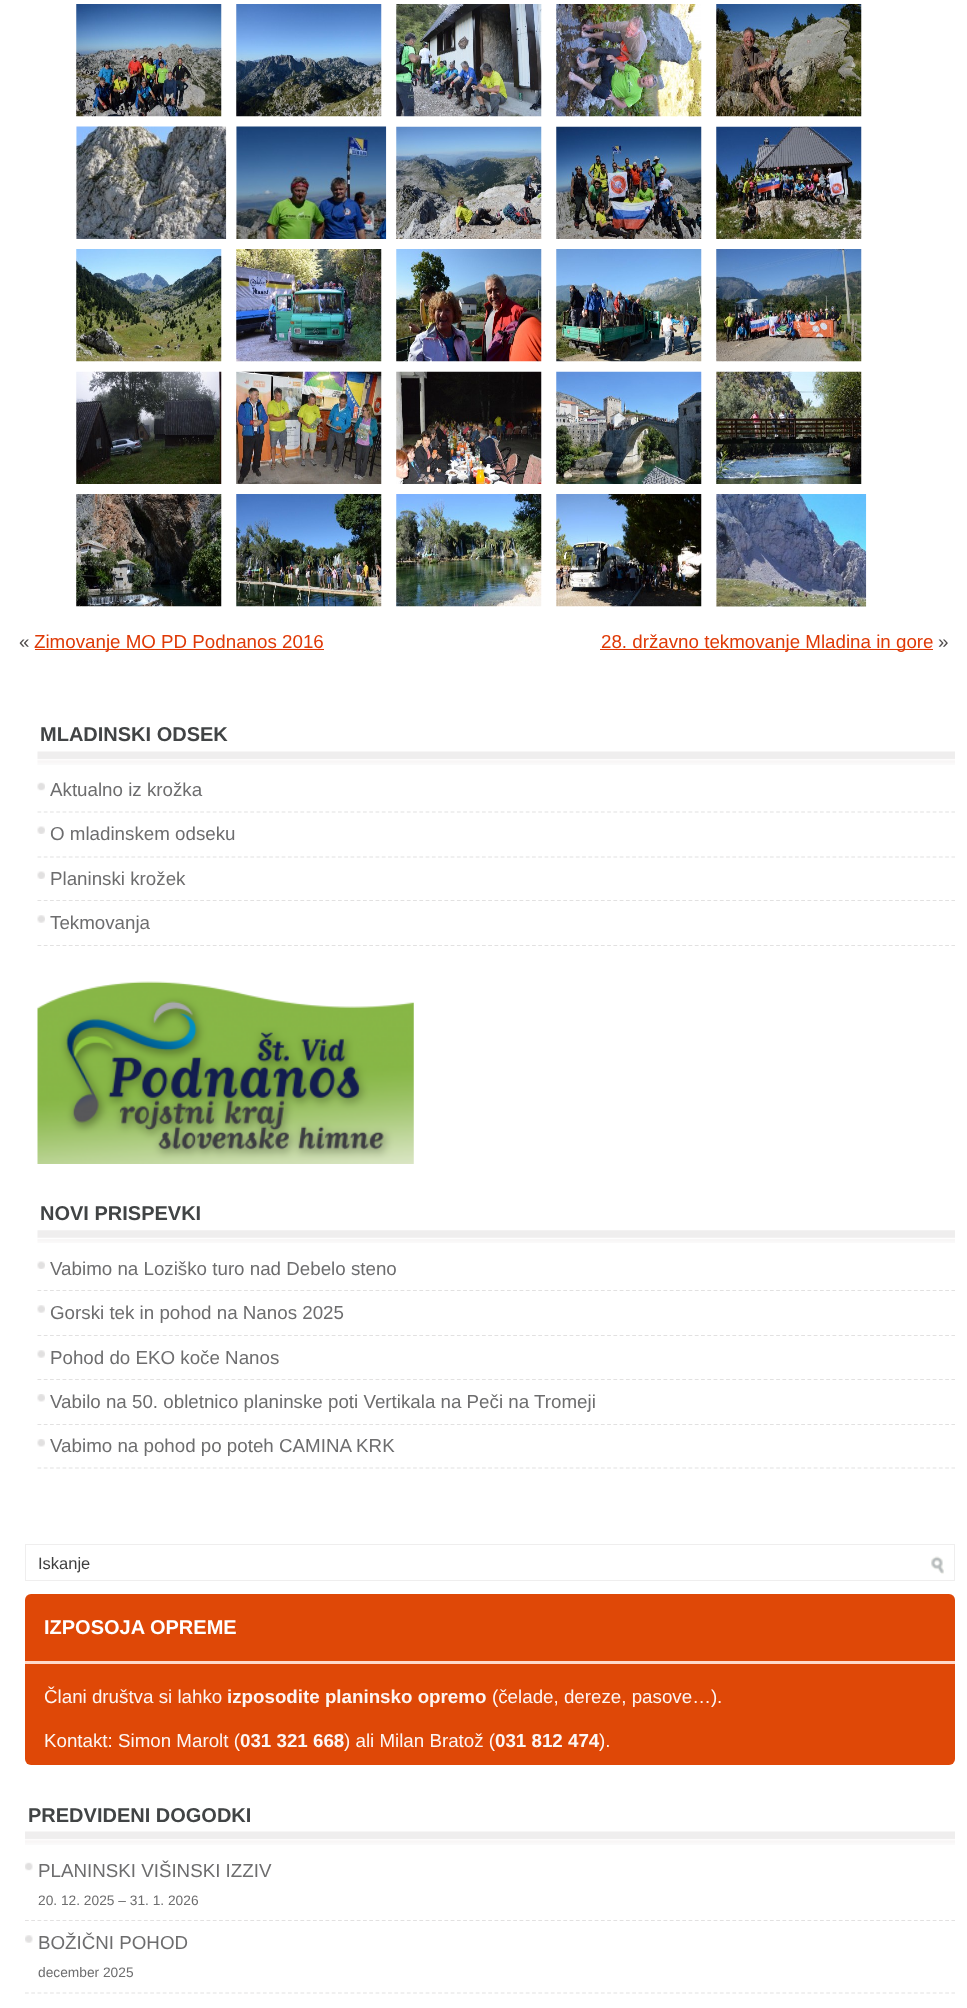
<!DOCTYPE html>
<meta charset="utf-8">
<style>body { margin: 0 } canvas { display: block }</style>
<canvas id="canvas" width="967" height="2008"></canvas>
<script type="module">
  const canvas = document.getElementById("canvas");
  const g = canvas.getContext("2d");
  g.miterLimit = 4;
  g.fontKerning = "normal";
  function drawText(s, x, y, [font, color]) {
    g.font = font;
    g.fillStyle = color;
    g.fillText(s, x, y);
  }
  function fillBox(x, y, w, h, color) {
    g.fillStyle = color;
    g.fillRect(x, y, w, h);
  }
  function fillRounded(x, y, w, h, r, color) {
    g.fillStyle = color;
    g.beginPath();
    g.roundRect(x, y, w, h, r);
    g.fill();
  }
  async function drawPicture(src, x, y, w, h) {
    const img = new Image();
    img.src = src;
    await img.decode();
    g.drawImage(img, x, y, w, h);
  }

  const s1 = ["18.75px Liberation Sans", "#504D4D"];
  const s2 = ["18.75px Liberation Sans", "#DF3906"];
  const s3 = ["bold 20px Liberation Sans", "#414445"];
  const s4 = ["18.75px Liberation Sans", "#6D6D6E"];
  const s5 = ["16.5px Liberation Sans", "#3F3F3F"];
  const s6 = ["bold 20px Liberation Sans", "#FFFFFF"];
  const s7 = ["18.75px Liberation Sans", "#FDF6F3"];
  const s8 = ["bold 18.75px Liberation Sans", "#FDF6F3"];
  const s9 = ["13.75px Liberation Sans", "#6D6D6E"];

  fillBox(0, 0, 967, 2008, "#FFFFFF");
  await drawPicture("pic1.png", 76, 4, 146, 113);
  await drawPicture("pic2.png", 236, 4, 146, 113);
  await drawPicture("pic3.png", 396, 4, 146, 113);
  await drawPicture("pic4.png", 556, 4, 146, 113);
  await drawPicture("pic5.png", 716, 4, 146, 113);
  await drawPicture("pic6.png", 76, 126, 151, 113);
  await drawPicture("pic7.png", 236, 126, 151, 113);
  await drawPicture("pic8.png", 396, 126, 146, 113);
  await drawPicture("pic9.png", 556, 126, 146, 113);
  await drawPicture("pic10.png", 716, 126, 146, 113);
  await drawPicture("pic11.png", 76, 249, 146, 113);
  await drawPicture("pic12.png", 236, 249, 146, 113);
  await drawPicture("pic13.png", 396, 249, 146, 113);
  await drawPicture("pic14.png", 556, 249, 146, 113);
  await drawPicture("pic15.png", 716, 249, 146, 113);
  await drawPicture("pic16.png", 76, 371, 146, 113);
  await drawPicture("pic17.png", 236, 371, 146, 113);
  await drawPicture("pic18.png", 396, 371, 146, 113);
  await drawPicture("pic19.png", 556, 371, 146, 113);
  await drawPicture("pic20.png", 716, 371, 146, 113);
  await drawPicture("pic21.png", 76, 494, 146, 113);
  await drawPicture("pic22.png", 236, 494, 146, 113);
  await drawPicture("pic23.png", 396, 494, 146, 113);
  await drawPicture("pic24.png", 556, 494, 146, 113);
  await drawPicture("pic25.png", 716, 494, 151, 113);
  drawText("«", 19, 648, s1);
  fillBox(35, 649, 289, 1, "#DF3906");
  drawText("Zimovanje MO PD Podnanos 2016", 34, 648, s2);
  fillBox(600, 649, 333, 1, "#DF3906");
  drawText("28. državno tekmovanje Mladina in gore", 601, 648, s2);
  drawText("»", 938, 648, s1);
  await drawPicture("pic26.png", 37, 751, 918, 14);
  drawText("MLADINSKI ODSEK", 40, 741, s3);
  await drawPicture("pic27.png", 37, 782, 8, 9);
  g.beginPath();
  g.moveTo(37.5, 812);
  g.lineTo(955, 812);
  g.strokeStyle = "#E2E1E1";
  g.lineWidth = 1.2;
  g.setLineDash([3.75, 2.51]);
  g.stroke();
  drawText("Aktualno iz krožka", 50, 796, s4);
  await drawPicture("pic28.png", 37, 826, 8, 8);
  g.beginPath();
  g.moveTo(37.5, 857);
  g.lineTo(955, 857);
  g.stroke();
  drawText("O mladinskem odseku", 50, 840, s4);
  await drawPicture("pic28.png", 37, 871, 8, 8);
  g.beginPath();
  g.moveTo(37.5, 900.5);
  g.lineTo(955, 900.5);
  g.stroke();
  drawText("Planinski krožek", 50, 885, s4);
  await drawPicture("pic29.png", 37, 915, 8, 8);
  g.beginPath();
  g.moveTo(37.5, 945.5);
  g.lineTo(955, 945.5);
  g.stroke();
  drawText("Tekmovanja", 50, 929, s4);
  await drawPicture("pic30.png", 37, 981, 377, 183);
  await drawPicture("pic31.png", 37, 1230, 918, 13);
  drawText("NOVI PRISPEVKI", 40, 1220, s3);
  await drawPicture("pic28.png", 37, 1261, 8, 8);
  g.beginPath();
  g.moveTo(37.5, 1290.5);
  g.lineTo(955, 1290.5);
  g.stroke();
  drawText("Vabimo na Loziško turo nad Debelo steno", 50, 1275, s4);
  await drawPicture("pic32.png", 37, 1305, 8, 8);
  g.beginPath();
  g.moveTo(37.5, 1335.5);
  g.lineTo(955, 1335.5);
  g.stroke();
  drawText("Gorski tek in pohod na Nanos 2025", 50, 1319, s4);
  await drawPicture("pic29.png", 37, 1350, 8, 8);
  g.beginPath();
  g.moveTo(37.5, 1379.5);
  g.lineTo(955, 1379.5);
  g.stroke();
  drawText("Pohod do EKO koče Nanos", 50, 1364, s4);
  await drawPicture("pic33.png", 37, 1394, 8, 8);
  g.beginPath();
  g.moveTo(37.5, 1424.5);
  g.lineTo(955, 1424.5);
  g.stroke();
  drawText("Vabilo na 50. obletnico planinske poti Vertikala na Peči na Tromeji", 50, 1408, s4);
  await drawPicture("pic33.png", 37, 1439, 8, 8);
  g.beginPath();
  g.moveTo(37.5, 1468);
  g.lineTo(955, 1468);
  g.stroke();
  drawText("Vabimo na pohod po poteh CAMINA KRK", 50, 1452, s4);
  g.strokeStyle = "#EFEEEE";
  g.lineWidth = 1;
  g.setLineDash([]);
  g.strokeRect(25.5, 1544.5, 929, 36);
  drawText("Iskanje", 38, 1569, s5);
  await drawPicture("pic34.png", 931, 1556, 13, 18);
  fillRounded(25, 1594, 930, 171, 6, "#DF4807");
  fillBox(25, 1661, 930, 3, "#FFD9C9");
  drawText("IZPOSOJA OPREME", 44, 1634, s6);
  drawText("Člani društva si lahko", 44, 1703, s7);
  drawText("izposodite planinsko opremo", 227, 1703, s8);
  drawText("(čelade, dereze, pasove…).", 492, 1703, s7);
  drawText("Kontakt: Simon Marolt (", 44, 1747, s7);
  drawText("031 321 668", 240, 1747, s8);
  drawText(") ali Milan Bratož (", 344, 1747, s7);
  drawText("031 812 474", 495, 1747, s8);
  drawText(").", 599, 1747, s7);
  await drawPicture("pic35.png", 25, 1831, 930, 14);
  drawText("PREDVIDENI DOGODKI", 28, 1822, s3);
  await drawPicture("pic36.png", 25, 1862, 8, 9);
  g.beginPath();
  g.moveTo(25, 1920.5);
  g.lineTo(955, 1920.5);
  g.strokeStyle = "#E2E1E1";
  g.lineWidth = 1.2;
  g.setLineDash([3.75, 2.51]);
  g.stroke();
  drawText("PLANINSKI VIŠINSKI IZZIV", 38, 1877, s4);
  drawText("20. 12. 2025 – 31. 1. 2026", 38, 1905, s9);
  await drawPicture("pic37.png", 25, 1935, 8, 8);
  g.beginPath();
  g.moveTo(25, 1993);
  g.lineTo(955, 1993);
  g.stroke();
  drawText("BOŽIČNI POHOD", 38, 1949, s4);
  drawText("december 2025", 38, 1977, s9);
</script>
